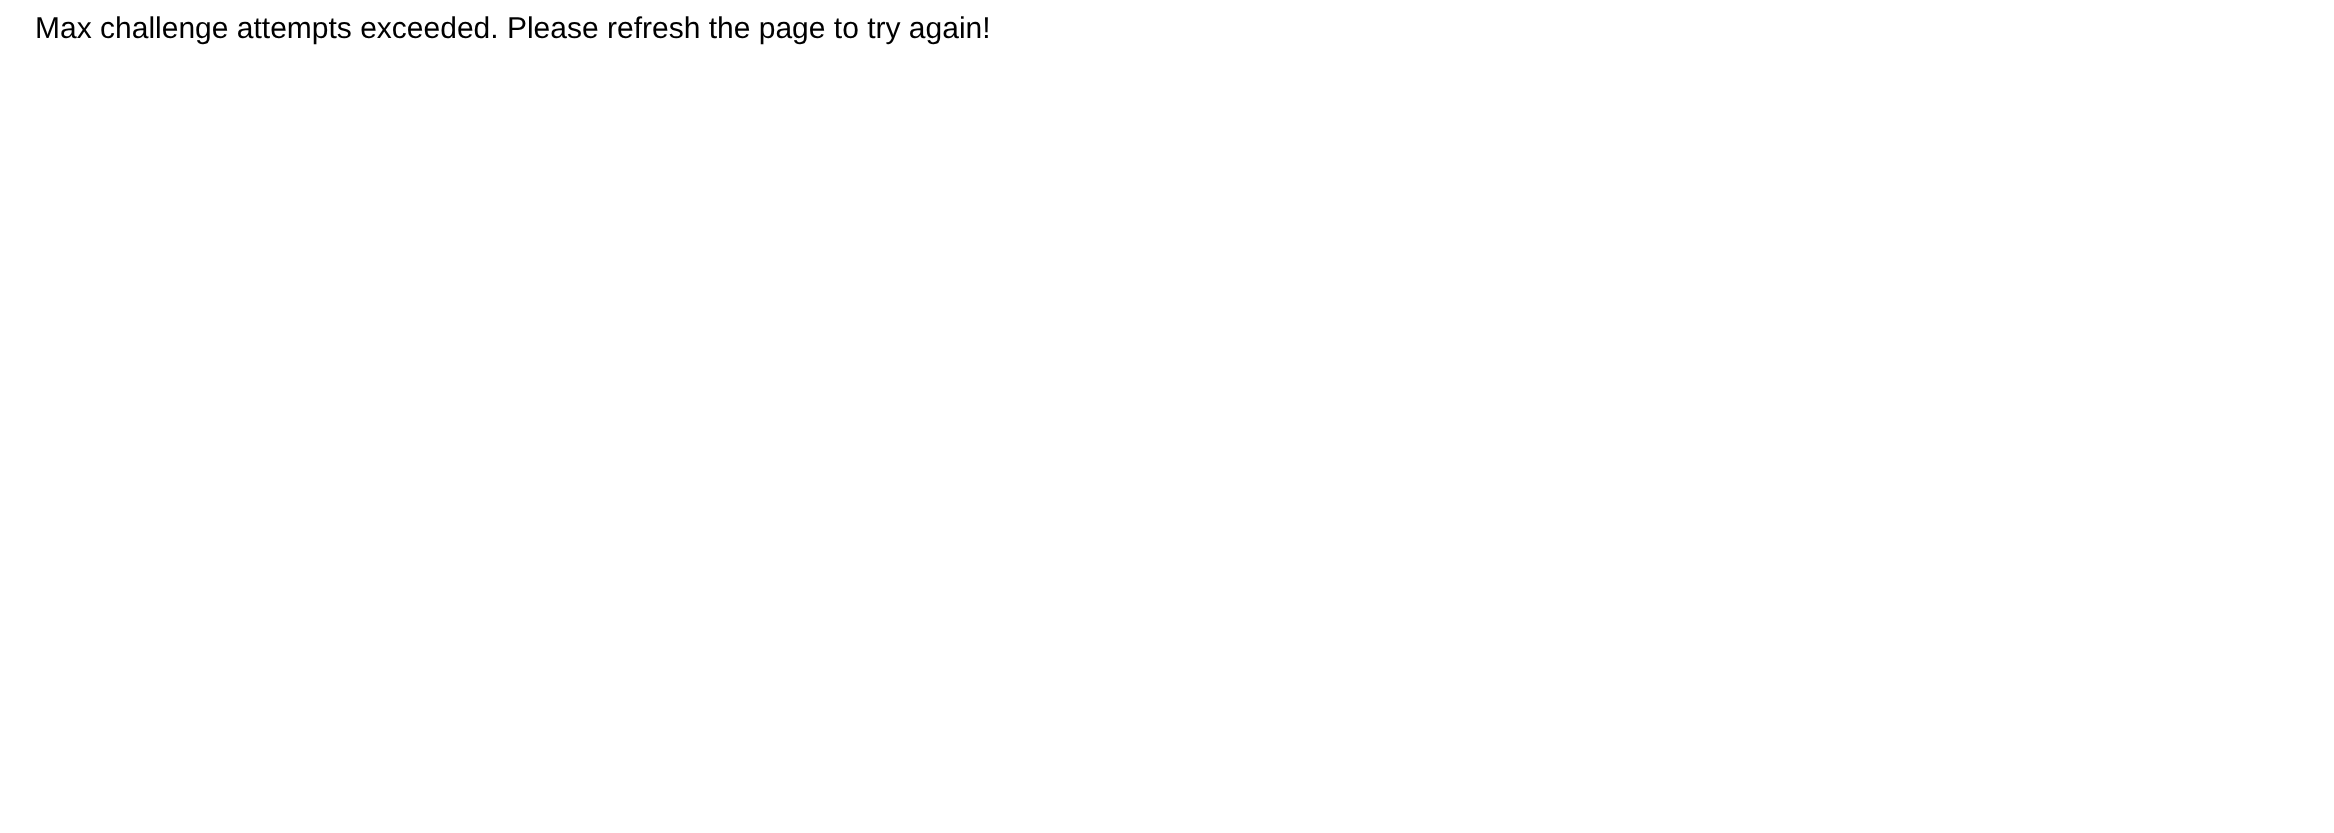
<!DOCTYPE html>
<meta charset="utf-8">
<style>body { margin: 0 } canvas { display: block }</style>
<canvas id="canvas" width="2334" height="833"></canvas>
<script type="module">
  const canvas = document.getElementById("canvas");
  const g = canvas.getContext("2d");
  g.miterLimit = 4;
  g.fontKerning = "normal";
  function drawText(s, x, y, [font, color]) {
    g.font = font;
    g.fillStyle = color;
    g.fillText(s, x, y);
  }
  function fillBox(x, y, w, h, color) {
    g.fillStyle = color;
    g.fillRect(x, y, w, h);
  }

  const s1 = ["30px Liberation Sans", "#000000"];

  fillBox(0, 0, 2334, 833, "#FFFFFF");
  drawText("Max challenge attempts exceeded. Please refresh the page to try again!", 35, 38, s1);
</script>
